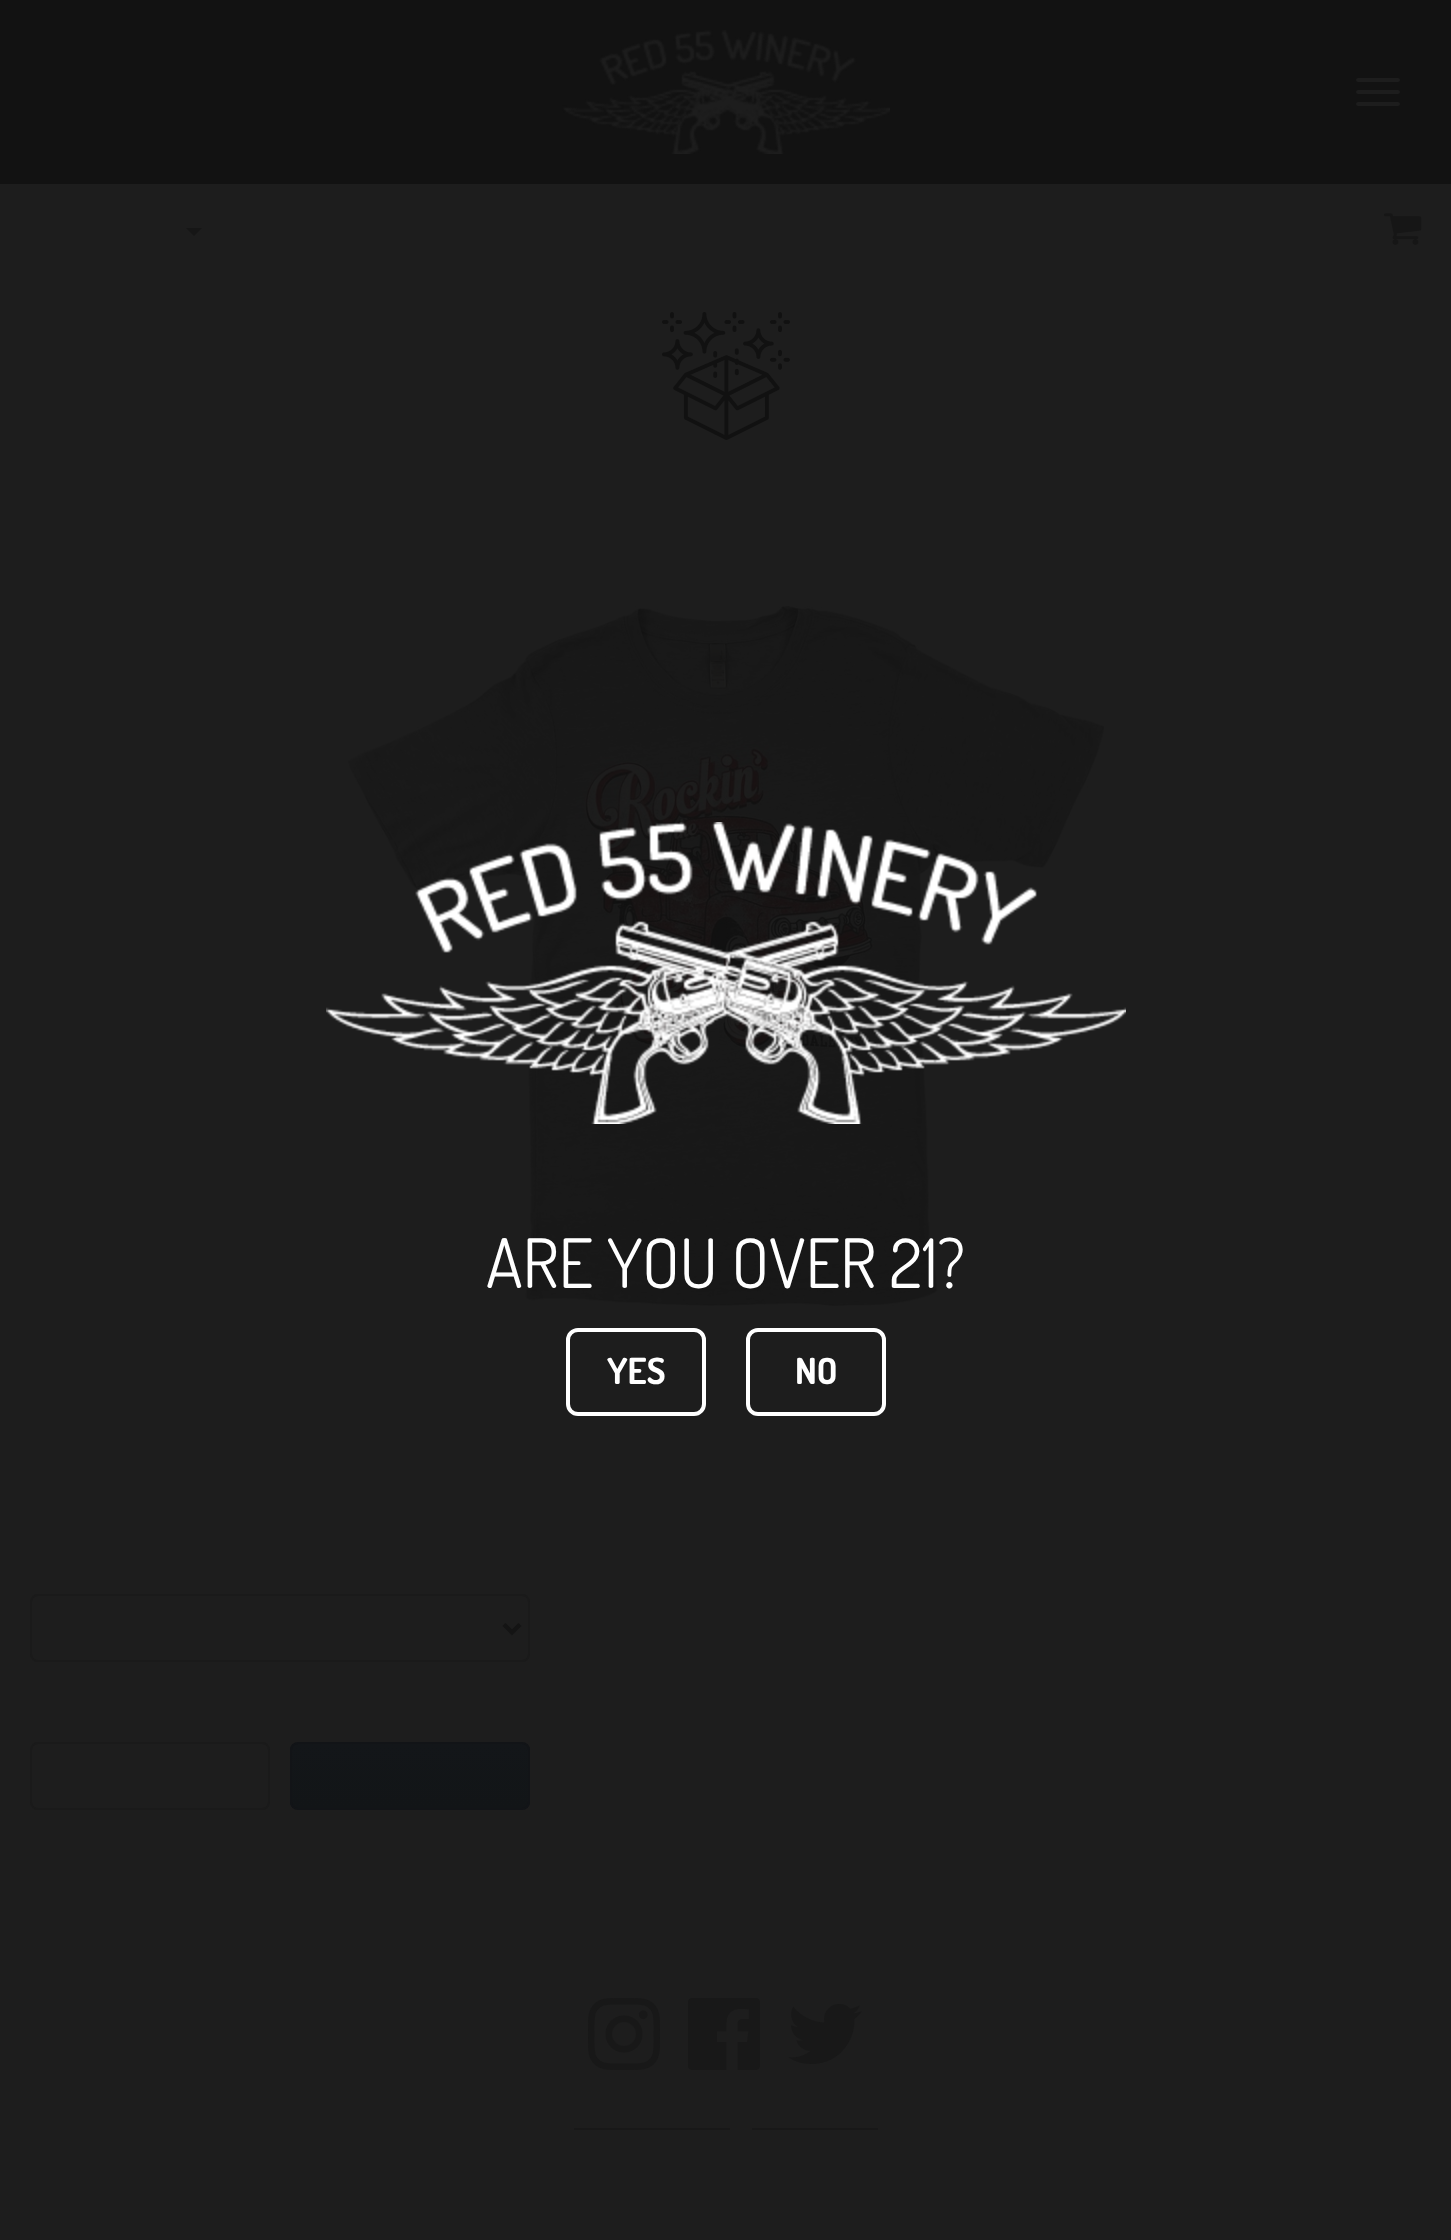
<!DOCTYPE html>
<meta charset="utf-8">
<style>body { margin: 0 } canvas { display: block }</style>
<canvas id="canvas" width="1451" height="2240"></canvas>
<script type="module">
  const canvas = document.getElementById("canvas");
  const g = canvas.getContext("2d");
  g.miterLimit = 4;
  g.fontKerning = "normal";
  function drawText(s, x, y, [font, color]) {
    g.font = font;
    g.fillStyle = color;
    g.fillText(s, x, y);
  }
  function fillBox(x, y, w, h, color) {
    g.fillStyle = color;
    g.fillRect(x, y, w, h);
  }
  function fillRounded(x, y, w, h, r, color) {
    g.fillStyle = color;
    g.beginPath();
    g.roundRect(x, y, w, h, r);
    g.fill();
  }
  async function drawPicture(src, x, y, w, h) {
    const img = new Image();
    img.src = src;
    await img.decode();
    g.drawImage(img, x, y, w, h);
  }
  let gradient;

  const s1 = ["68px Dosis", "#FFFFFF"];
  const s2 = ["bold 36px Dosis", "#FFFFFF"];

  fillBox(0, 0, 1451, 2240, "#1D1D1D");
  fillBox(0, 0, 1451, 184, "#121212");
  await drawPicture("pic1.png", 562, 30, 328, 124);
  fillRounded(1356, 78, 44, 4, 2, "#1D1D1D");
  fillRounded(1356, 90, 44, 4, 2, "#1D1D1D");
  fillRounded(1356, 102, 44, 4, 2, "#1D1D1D");
  g.fillStyle = "#161616";
  g.beginPath();
  g.moveTo(186, 228);
  g.lineTo(202, 228);
  g.lineTo(194, 236);
  g.closePath();
  g.fill();
  await drawPicture("pic2.png", 1384, 213, 38, 32);
  await drawPicture("pic3.png", 662, 312, 128, 128);
  await drawPicture("pic4.png", 348, 606, 756, 700);
  g.beginPath();
  g.roundRect(31, 1595, 498, 66, 7);
  g.strokeStyle = "#1A1A1A";
  g.lineWidth = 2;
  g.stroke();
  g.beginPath();
  g.moveTo(504, 1624.5);
  g.lineTo(512, 1632.5);
  g.lineTo(520, 1624.5);
  g.strokeStyle = "#141414";
  g.lineWidth = 4;
  g.stroke();
  g.beginPath();
  g.roundRect(31, 1743, 238, 66, 7);
  g.strokeStyle = "#1A1A1A";
  g.lineWidth = 2;
  g.stroke();
  g.save();
  g.beginPath();
  g.roundRect(290, 1742, 240, 68, 8);
  g.clip();
  gradient = g.createLinearGradient(410, 1744, 410, 1808);
  gradient.addColorStop(0, "#131619");
  gradient.addColorStop(1, "#121517");
  g.fillStyle = gradient;
  g.fillRect(290, 1744, 240, 64);
  g.restore();
  g.beginPath();
  g.roundRect(291, 1743, 238, 66, 7);
  g.strokeStyle = "#121417";
  g.stroke();
  await drawPicture("pic5.png", 326, 822, 800, 302);
  drawText("ARE YOU OVER 21?", 486, 1288, s1);
  g.beginPath();
  g.roundRect(568, 1330, 136, 84, 10);
  g.strokeStyle = "#FFFFFF";
  g.lineWidth = 4;
  g.stroke();
  drawText("YES", 607, 1384, s2);
  g.beginPath();
  g.roundRect(748, 1330, 136, 84, 10);
  g.stroke();
  drawText("NO", 795, 1384, s2);
  await drawPicture("pic6.png", 588, 1998, 72, 72);
  await drawPicture("pic7.png", 688, 1998, 72, 72);
  await drawPicture("pic8.png", 788, 2004, 74, 60);
  fillBox(574, 2128, 156, 2, "#181818");
  fillBox(752, 2128, 126, 2, "#181818");
</script>
